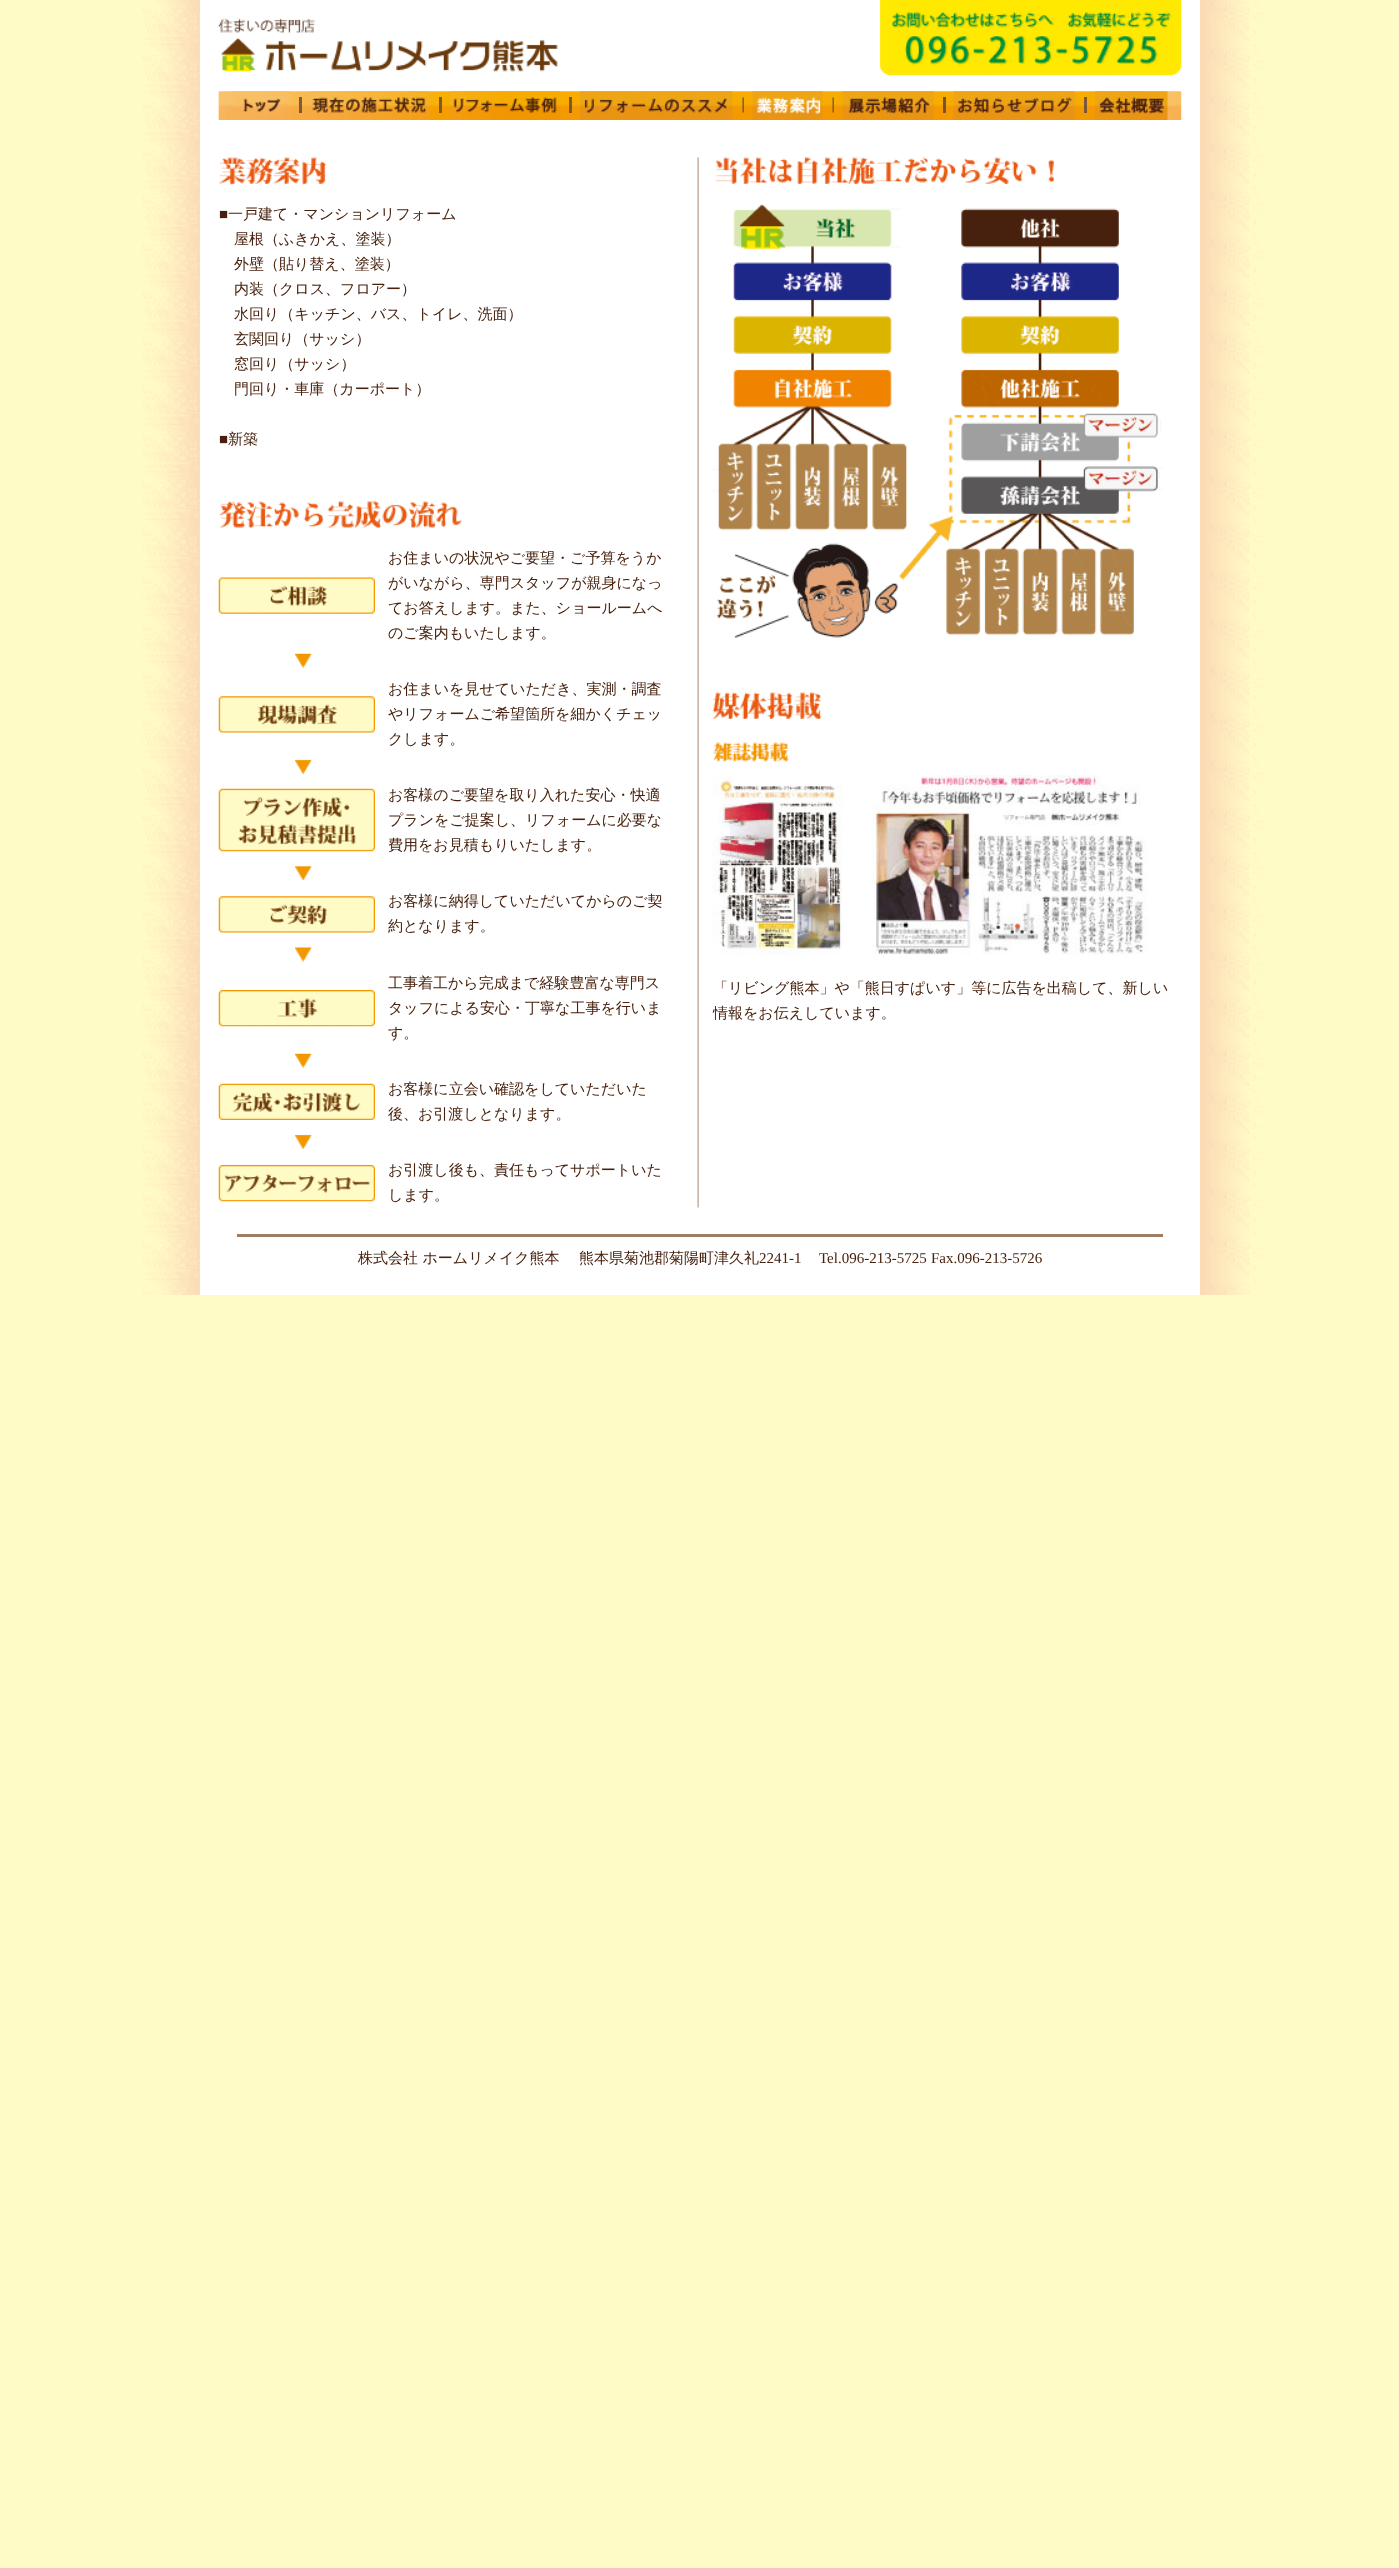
<!DOCTYPE html>
<meta charset="utf-8">
<style>body { margin: 0 } canvas { display: block }</style>
<canvas id="canvas" width="1399" height="2568"></canvas>
<script type="module">
  const canvas = document.getElementById("canvas");
  const g = canvas.getContext("2d");
  g.miterLimit = 4;
  g.fontKerning = "normal";
  function drawText(s, x, y, [font, color]) {
    g.font = font;
    g.fillStyle = color;
    g.fillText(s, x, y);
  }
  function fillBox(x, y, w, h, color) {
    g.fillStyle = color;
    g.fillRect(x, y, w, h);
  }
  async function drawPicture(src, x, y, w, h) {
    const img = new Image();
    img.src = src;
    await img.decode();
    g.drawImage(img, x, y, w, h);
  }

  const s1 = ["15px Liberation Serif", "#47210D"];
  const s2 = ["500 15px WenQuanYi Zen Hei", "#47210D"];

  fillBox(0, 0, 1399, 2568, "#FFFBC7");
  await drawPicture("pic1.png", 141, 0, 1122, 1295);
  fillBox(200, 0, 1000, 1295, "#FFFFFF");
  await drawPicture("pic2.png", 218, 18, 340, 54);
  await drawPicture("pic3.png", 879, 0, 303, 76);
  await drawPicture("pic4.png", 218, 91, 964, 29);
  await drawPicture("pic5.png", 232, 91, 58, 29);
  fillBox(299, 97, 3, 16, "rgba(106, 77, 62, 0.87)");
  await drawPicture("pic6.png", 310, 91, 120, 29);
  fillBox(439, 97, 3, 16, "rgba(106, 77, 62, 0.87)");
  await drawPicture("pic7.png", 450, 91, 110, 29);
  fillBox(569, 97, 3, 16, "rgba(106, 77, 62, 0.87)");
  await drawPicture("pic8.png", 580, 91, 153, 29);
  await drawPicture("pic9.png", 742, 97, 2, 16);
  await drawPicture("pic10.png", 752, 91, 71, 29);
  await drawPicture("pic11.png", 832, 97, 2, 16);
  await drawPicture("pic12.png", 842, 91, 92, 29);
  fillBox(943, 97, 3, 16, "rgba(107, 77, 62, 0.94)");
  await drawPicture("pic13.png", 953, 91, 122, 29);
  fillBox(1084, 97, 3, 16, "rgba(106, 77, 62, 0.87)");
  await drawPicture("pic14.png", 1095, 91, 73, 29);
  await drawPicture("pic15.png", 218, 157, 109, 29);
  drawText("■", 219, 219, s1);
  drawText("一戸建て・マンションリフォーム", 228, 219, s2);
  drawText("屋根（ふきかえ、塗装）", 234, 244, s2);
  drawText("外壁（貼り替え、塗装）", 234, 269, s2);
  drawText("内装（クロス、フロアー）", 234, 294, s2);
  drawText("水回り（キッチン、バス、トイレ、洗面）", 234, 319, s2);
  drawText("玄関回り（サッシ）", 234, 344, s2);
  drawText("窓回り（サッシ）", 234, 369, s2);
  drawText("門回り・車庫（カーポート）", 234, 394, s2);
  drawText("■", 219, 444, s1);
  drawText("新築", 228, 444, s2);
  await drawPicture("pic16.png", 218, 501, 245, 27);
  await drawPicture("pic17.png", 218, 577, 157, 37);
  drawText("お住まいの状況やご要望・ご予算をうか", 388, 563, s2);
  drawText("がいながら、専門スタッフが親身になっ", 388, 588, s2);
  drawText("てお答えします。また、ショールームへ", 388, 613, s2);
  drawText("のご案内もいたします。", 388, 638, s2);
  await drawPicture("pic18.png", 295, 653, 17, 15);
  await drawPicture("pic19.png", 218, 696, 157, 37);
  drawText("お住まいを見せていただき、実測・調査", 388, 694, s2);
  drawText("やリフォームご希望箇所を細かくチェッ", 388, 719, s2);
  drawText("クします。", 388, 744, s2);
  await drawPicture("pic20.png", 295, 759, 17, 15);
  await drawPicture("pic21.png", 218, 788, 157, 64);
  drawText("お客様のご要望を取り入れた安心・快適", 388, 800, s2);
  drawText("プランをご提案し、リフォームに必要な", 388, 825, s2);
  drawText("費用をお見積もりいたします。", 388, 850, s2);
  await drawPicture("pic22.png", 295, 866, 17, 15);
  await drawPicture("pic23.png", 218, 896, 157, 37);
  drawText("お客様に納得していただいてからのご契", 388, 906, s2);
  drawText("約となります。", 388, 931, s2);
  await drawPicture("pic24.png", 295, 947, 17, 15);
  await drawPicture("pic25.png", 218, 990, 157, 37);
  drawText("工事着工から完成まで経験豊富な専門ス", 388, 988, s2);
  drawText("タッフによる安心・丁寧な工事を行いま", 388, 1013, s2);
  drawText("す。", 388, 1038, s2);
  await drawPicture("pic18.png", 295, 1053, 17, 15);
  await drawPicture("pic26.png", 218, 1083, 157, 37);
  drawText("お客様に立会い確認をしていただいた", 388, 1094, s2);
  drawText("後、お引渡しとなります。", 388, 1119, s2);
  await drawPicture("pic20.png", 295, 1134, 17, 15);
  await drawPicture("pic27.png", 218, 1165, 157, 37);
  drawText("お引渡し後も、責任もってサポートいた", 388, 1175, s2);
  drawText("します。", 388, 1200, s2);
  await drawPicture("pic28.png", 697, 157, 2, 1051);
  await drawPicture("pic29.png", 715, 157, 339, 28);
  await drawPicture("pic30.png", 712, 204, 451, 434);
  await drawPicture("pic31.png", 712, 692, 110, 28);
  await drawPicture("pic32.png", 713, 742, 76, 20);
  await drawPicture("pic33.png", 712, 775, 131, 180);
  await drawPicture("pic34.png", 871, 775, 277, 180);
  drawText("「リビング熊本」や「熊日すぱいす」等に広告を出稿して、新しい", 713, 993, s2);
  drawText("情報をお伝えしています。", 713, 1018, s2);
  fillBox(237, 1234, 926, 3, "#9E7D60");
  drawText("株式会社 ホームリメイク熊本 　熊本県菊池郡菊陽町津久礼", 358, 1263, s2);
  drawText("2241-1", 759, 1263, s1);
  drawText("Tel.096-213-5725", 819, 1263, s1);
  drawText("Fax.096-213-5726", 931, 1263, s1);
</script>
